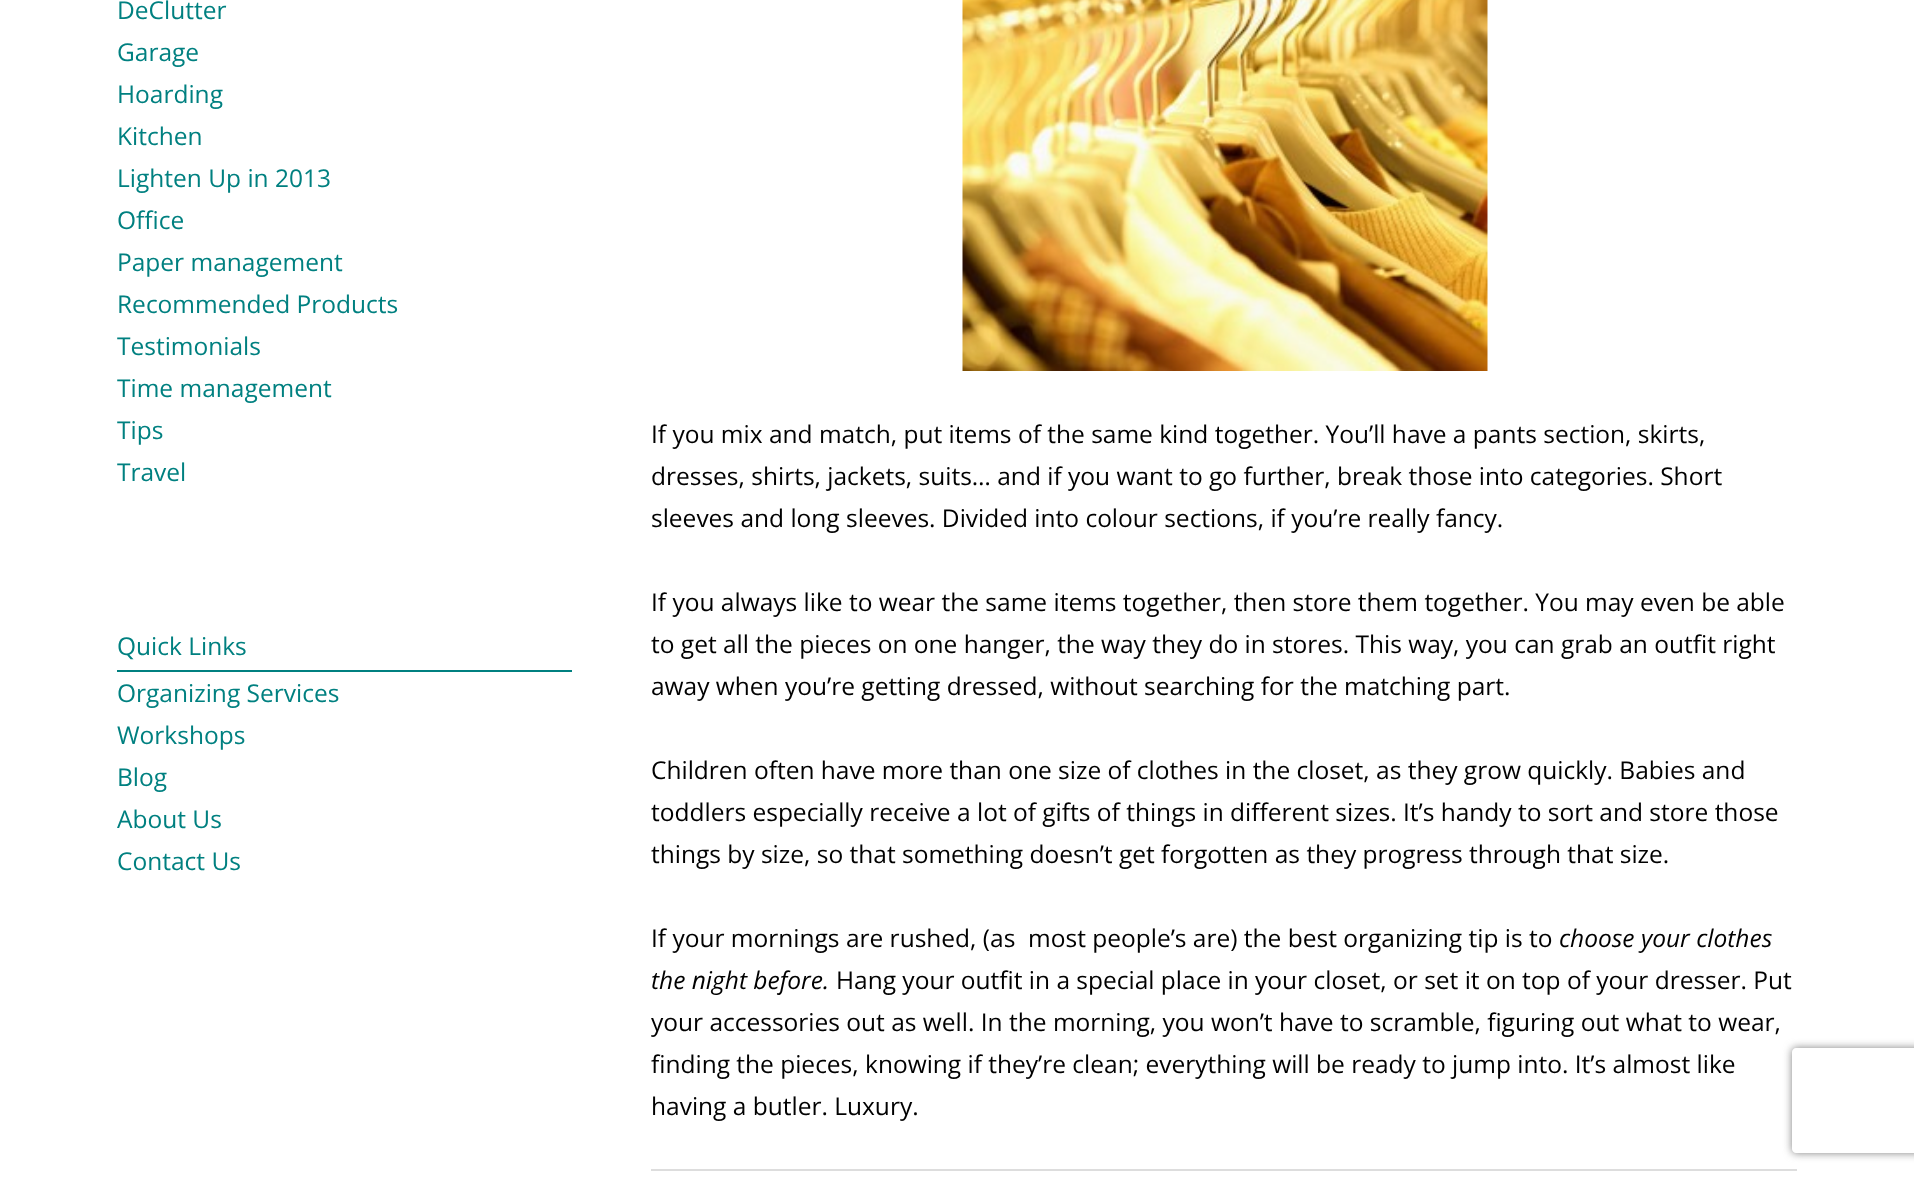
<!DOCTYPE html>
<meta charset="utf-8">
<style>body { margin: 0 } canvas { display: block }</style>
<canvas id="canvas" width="1914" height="1177"></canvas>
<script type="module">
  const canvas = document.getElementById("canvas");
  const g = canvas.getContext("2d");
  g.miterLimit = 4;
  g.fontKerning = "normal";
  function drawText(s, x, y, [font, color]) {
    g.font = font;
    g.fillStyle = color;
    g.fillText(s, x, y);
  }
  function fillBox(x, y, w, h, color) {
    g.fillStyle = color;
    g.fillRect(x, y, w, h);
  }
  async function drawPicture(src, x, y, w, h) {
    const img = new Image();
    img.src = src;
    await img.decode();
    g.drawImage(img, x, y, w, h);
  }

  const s1 = ["24.5px Open Sans", "#008080"];
  const s2 = ["24.5px Open Sans", "#000000"];
  const s3 = ["italic 24.5px Open Sans", "#000000"];

  fillBox(0, 0, 1914, 1177, "#FFFFFF");
  drawText("DeClutter", 117, 19, s1);
  drawText("Garage", 117, 61, s1);
  drawText("Hoarding", 117, 103, s1);
  drawText("Kitchen", 117, 145, s1);
  drawText("Lighten Up in 2013", 117, 187, s1);
  drawText("Office", 117, 229, s1);
  drawText("Paper management", 117, 271, s1);
  drawText("Recommended Products", 117, 313, s1);
  drawText("Testimonials", 117, 355, s1);
  drawText("Time management", 117, 397, s1);
  drawText("Tips", 117, 439, s1);
  drawText("Travel", 117, 481, s1);
  drawText("Quick Links", 117, 655, s1);
  fillBox(117, 670, 455, 2, "#008080");
  drawText("Organizing Services", 117, 702, s1);
  drawText("Workshops", 117, 744, s1);
  drawText("Blog", 117, 786, s1);
  drawText("About Us", 117, 828, s1);
  drawText("Contact Us", 117, 870, s1);
  await drawPicture("pic1.png", 962, 0, 526, 371);
  drawText("If you mix and match, put items of the same kind together. You’ll have a pants section, skirts,", 651, 443, s2);
  drawText("dresses, shirts, jackets, suits… and if you want to go further, break those into categories. Short", 651, 485, s2);
  drawText("sleeves and long sleeves. Divided into colour sections, if you’re really fancy.", 651, 527, s2);
  drawText("If you always like to wear the same items together, then store them together. You may even be able", 651, 611, s2);
  drawText("to get all the pieces on one hanger, the way they do in stores. This way, you can grab an outfit right", 651, 653, s2);
  drawText("away when you’re getting dressed, without searching for the matching part.", 651, 695, s2);
  drawText("Children often have more than one size of clothes in the closet, as they grow quickly. Babies and", 651, 779, s2);
  drawText("toddlers especially receive a lot of gifts of things in different sizes. It’s handy to sort and store those", 651, 821, s2);
  drawText("things by size, so that something doesn’t get forgotten as they progress through that size.", 651, 863, s2);
  drawText("If your mornings are rushed, (as  most people’s are) the best organizing tip is to", 651, 947, s2);
  drawText("choose your clothes", 1559, 947, s3);
  drawText("the night before.", 651, 989, s3);
  drawText("Hang your outfit in a special place in your closet, or set it on top of your dresser. Put", 836, 989, s2);
  drawText("your accessories out as well. In the morning, you won’t have to scramble, figuring out what to wear,", 651, 1031, s2);
  drawText("finding the pieces, knowing if they’re clean; everything will be ready to jump into. It’s almost like", 651, 1073, s2);
  drawText("having a butler. Luxury.", 651, 1115, s2);
  fillBox(651, 1169, 1146, 2, "#DDDDDD");
  g.save();
  g.beginPath();
  g.moveTo(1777, 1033);
  g.lineTo(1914, 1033);
  g.lineTo(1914, 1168);
  g.lineTo(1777, 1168);
  g.closePath();
  g.moveTo(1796, 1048);
  g.lineTo(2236, 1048);
  g.bezierCurveTo(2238, 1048, 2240, 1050, 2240, 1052);
  g.lineTo(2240, 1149);
  g.bezierCurveTo(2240, 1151, 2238, 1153, 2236, 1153);
  g.lineTo(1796, 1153);
  g.bezierCurveTo(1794, 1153, 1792, 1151, 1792, 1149);
  g.lineTo(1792, 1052);
  g.bezierCurveTo(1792, 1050, 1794, 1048, 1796, 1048);
  g.closePath();
  g.clip("evenodd");
  g.fillStyle = "#808080";
  g.filter = "blur(4.5px)";
  g.beginPath();
  g.roundRect(1792, 1048, 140, 105, 4);
  g.fill();
  g.filter = "none";
  g.restore();
</script>
